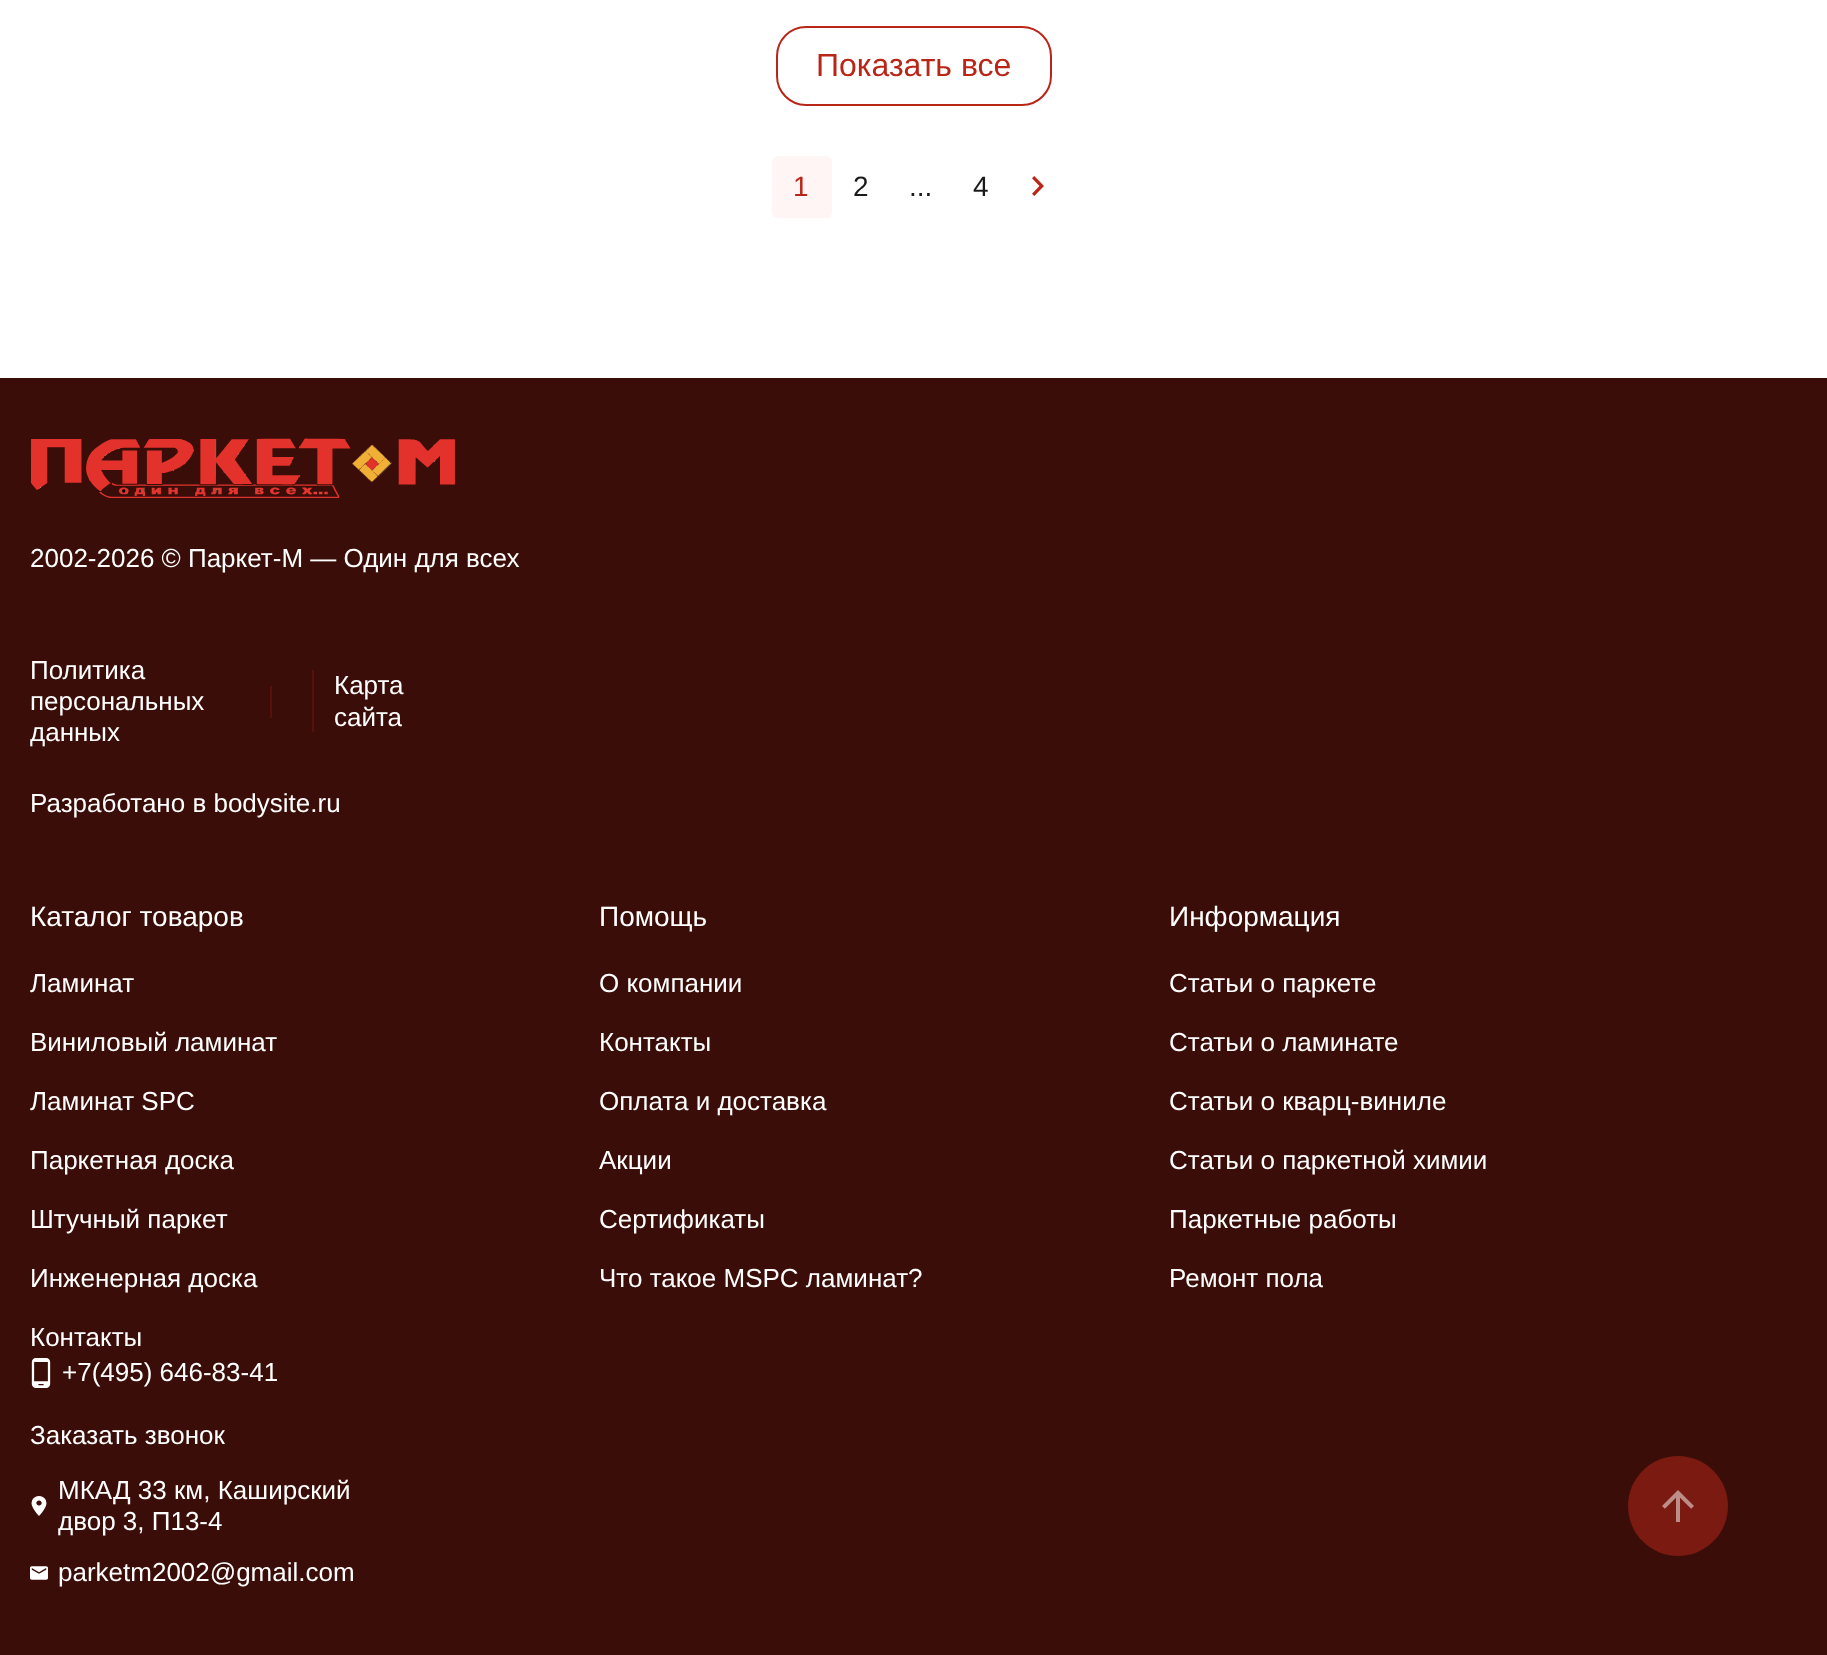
<!DOCTYPE html>
<meta charset="utf-8">
<style>body { margin: 0 } canvas { display: block }</style>
<canvas id="canvas" width="1827" height="1655"></canvas>
<script type="module">
  const canvas = document.getElementById("canvas");
  const g = canvas.getContext("2d");
  g.miterLimit = 4;
  g.fontKerning = "normal";
  function drawText(s, x, y, [font, color]) {
    g.font = font;
    g.fillStyle = color;
    g.fillText(s, x, y);
  }
  function fillBox(x, y, w, h, color) {
    g.fillStyle = color;
    g.fillRect(x, y, w, h);
  }
  function fillRounded(x, y, w, h, r, color) {
    g.fillStyle = color;
    g.beginPath();
    g.roundRect(x, y, w, h, r);
    g.fill();
  }
  async function drawPicture(src, x, y, w, h) {
    const img = new Image();
    img.src = src;
    await img.decode();
    g.drawImage(img, x, y, w, h);
  }

  const s1 = ["32px Liberation Sans", "#B92617"];
  const s2 = ["28px Liberation Sans", "#B92617"];
  const s3 = ["28px Liberation Sans", "#1B1B1B"];
  const s4 = ["26px Liberation Sans", "#FFFFFF"];
  const s5 = ["28px Liberation Sans", "#FFFFFF"];

  fillBox(0, 0, 1827, 1655, "#FFFFFF");
  g.beginPath();
  g.roundRect(777, 27, 274, 78, 29);
  g.strokeStyle = "#B92617";
  g.lineWidth = 2;
  g.stroke();
  drawText("Показать все", 816, 76, s1);
  fillRounded(772, 156, 60, 62, 6, "#FFF5F4");
  drawText("1", 793, 196, s2);
  drawText("2", 853, 196, s3);
  drawText("...", 909, 196, s3);
  drawText("4", 973, 196, s3);
  await drawPicture("pic1.png", 1032, 176, 12, 20);
  fillBox(0, 378, 1827, 1277, "#3B0D08");
  await drawPicture("pic2.png", 31, 438, 424, 60);
  drawText("2002-2026 © Паркет-М — Один для всех", 30, 567, s4);
  drawText("Политика", 30, 679, s4);
  drawText("персональных", 30, 710, s4);
  fillBox(270, 686, 2, 32, "#54120B");
  drawText("данных", 30, 741, s4);
  fillBox(312, 670, 2, 62, "#54120B");
  drawText("Карта", 334, 694, s4);
  drawText("сайта", 334, 726, s4);
  drawText("Разработано в bodysite.ru", 30, 812, s4);
  drawText("Каталог товаров", 30, 926, s5);
  drawText("Ламинат", 30, 992, s4);
  drawText("Виниловый ламинат", 30, 1051, s4);
  drawText("Ламинат SPC", 30, 1110, s4);
  drawText("Паркетная доска", 30, 1169, s4);
  drawText("Штучный паркет", 30, 1228, s4);
  drawText("Инженерная доска", 30, 1287, s4);
  drawText("Помощь", 599, 926, s5);
  drawText("О компании", 599, 992, s4);
  drawText("Контакты", 599, 1051, s4);
  drawText("Оплата и доставка", 599, 1110, s4);
  drawText("Акции", 599, 1169, s4);
  drawText("Сертификаты", 599, 1228, s4);
  drawText("Что такое MSPC ламинат?", 599, 1287, s4);
  drawText("Информация", 1169, 926, s5);
  drawText("Статьи о паркете", 1169, 992, s4);
  drawText("Статьи о ламинате", 1169, 1051, s4);
  drawText("Статьи о кварц-виниле", 1169, 1110, s4);
  drawText("Статьи о паркетной химии", 1169, 1169, s4);
  drawText("Паркетные работы", 1169, 1228, s4);
  drawText("Ремонт пола", 1169, 1287, s4);
  drawText("Контакты", 30, 1346, s4);
  await drawPicture("pic3.png", 31, 1358, 20, 30);
  drawText("+7(495) 646-83-41", 62, 1381, s4);
  drawText("Заказать звонок", 30, 1444, s4);
  await drawPicture("pic4.png", 31, 1496, 16, 20);
  drawText("МКАД 33 км, Каширский", 58, 1499, s4);
  drawText("двор 3, П13-4", 58, 1530, s4);
  await drawPicture("pic5.png", 30, 1566, 18, 14);
  drawText("parketm2002@gmail.com", 58, 1581, s4);
  g.fillStyle = "#7A1A10";
  g.beginPath();
  g.arc(1678, 1506, 50, 0, Math.PI * 2);
  g.fill();
  await drawPicture("pic6.png", 1662, 1490, 32, 32);
</script>
